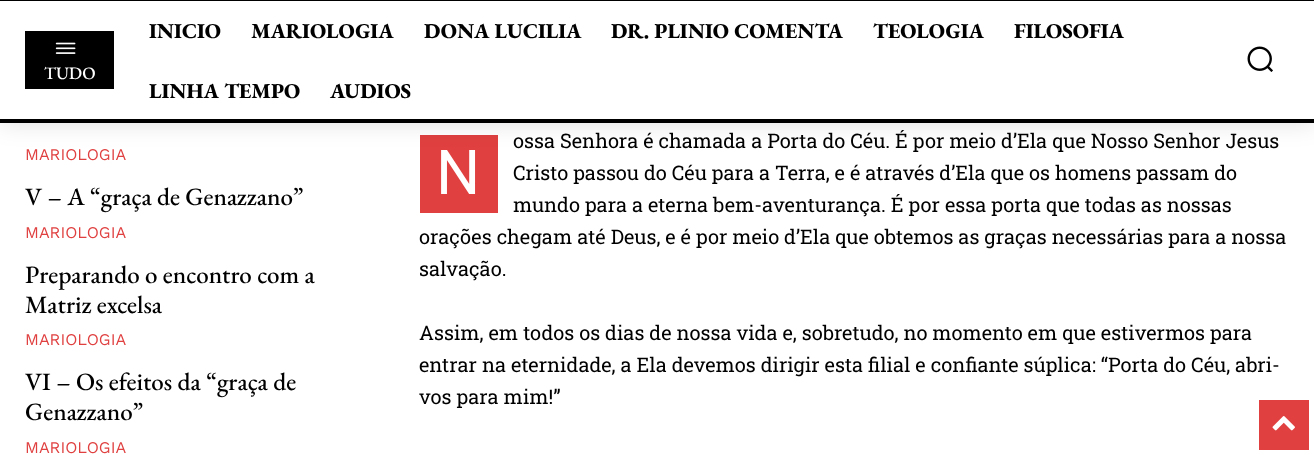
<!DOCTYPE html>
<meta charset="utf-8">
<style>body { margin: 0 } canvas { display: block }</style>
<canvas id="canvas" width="1314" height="455"></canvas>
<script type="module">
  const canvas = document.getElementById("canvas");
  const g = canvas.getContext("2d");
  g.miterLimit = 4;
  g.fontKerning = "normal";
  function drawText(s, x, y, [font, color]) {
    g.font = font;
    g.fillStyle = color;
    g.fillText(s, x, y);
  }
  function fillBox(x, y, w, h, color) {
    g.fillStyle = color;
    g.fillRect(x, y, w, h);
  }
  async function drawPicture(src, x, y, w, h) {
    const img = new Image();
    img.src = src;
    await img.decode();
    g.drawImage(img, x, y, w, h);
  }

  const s1 = ["500 17.5px EB Garamond", "#FFFFFF"];
  const s2 = ["800 21.25px EB Garamond", "#000000"];
  const s3 = ["16.25px Work Sans", "#E04040"];
  const s4 = ["500 25px EB Garamond", "#000000"];
  const s5 = ["20px Roboto Slab", "#000000"];
  const s6 = ["62px Roboto", "#FFFFFF"];

  fillBox(0, 0, 1314, 455, "#FFFFFF");
  fillBox(0, 0, 1314, 1, "#000000");
  fillBox(0, 119, 1314, 4, "#000000");
  fillBox(25, 31, 89, 58, "#000000");
  await drawPicture("pic1.png", 55, 42, 21, 12);
  fillBox(420, 135, 78, 78, "#E04040");
  g.save();
  g.beginPath();
  g.moveTo(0, 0);
  g.lineTo(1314, 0);
  g.lineTo(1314, 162);
  g.lineTo(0, 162);
  g.closePath();
  g.moveTo(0, 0);
  g.lineTo(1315, 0);
  g.lineTo(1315, 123);
  g.lineTo(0, 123);
  g.closePath();
  g.clip("evenodd");
  g.fillStyle = "rgba(0, 0, 0, 0.12)";
  g.filter = "blur(12.5px)";
  g.beginPath();
  g.rect(0, 0, 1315, 123);
  g.fill();
  g.filter = "none";
  g.restore();
  drawText("TUDO", 44, 79, s1);
  drawText("INICIO", 149, 38, s2);
  drawText("MARIOLOGIA", 251, 38, s2);
  drawText("DONA LUCILIA", 424, 38, s2);
  drawText("DR. PLINIO COMENTA", 611, 38, s2);
  drawText("TEOLOGIA", 873, 38, s2);
  drawText("FILOSOFIA", 1014, 38, s2);
  drawText("LINHA TEMPO", 149, 98, s2);
  drawText("AUDIOS", 330, 98, s2);
  await drawPicture("pic2.png", 1247, 46, 26, 26);
  drawText("MARIOLOGIA", 25, 160, s3);
  drawText("V – A “graça de Genazzano”", 25, 205, s4);
  drawText("MARIOLOGIA", 25, 238, s3);
  drawText("Preparando o encontro com a", 25, 283, s4);
  drawText("Matriz excelsa", 25, 313, s4);
  drawText("MARIOLOGIA", 25, 345, s3);
  drawText("VI – Os efeitos da “graça de", 25, 390, s4);
  drawText("Genazzano”", 25, 420, s4);
  drawText("MARIOLOGIA", 25, 453, s3);
  drawText("ossa Senhora é chamada a Porta do Céu. É por meio d’Ela que Nosso Senhor Jesus", 513, 148, s5);
  drawText("N", 436, 194, s6);
  drawText("Cristo passou do Céu para a Terra, e é através d’Ela que os homens passam do", 513, 180, s5);
  drawText("mundo para a eterna bem-aventurança. É por essa porta que todas as nossas", 513, 212, s5);
  drawText("orações chegam até Deus, e é por meio d’Ela que obtemos as graças necessárias para a nossa", 419, 244, s5);
  drawText("salvação.", 419, 276, s5);
  drawText("Assim, em todos os dias de nossa vida e, sobretudo, no momento em que estivermos para", 419, 340, s5);
  drawText("entrar na eternidade, a Ela devemos dirigir esta filial e confiante súplica: “Porta do Céu, abri-", 419, 372, s5);
  drawText("vos para mim!”", 419, 404, s5);
  fillBox(1259, 400, 50, 50, "#E04040");
  await drawPicture("pic3.png", 1272, 416, 23, 15);
</script>
